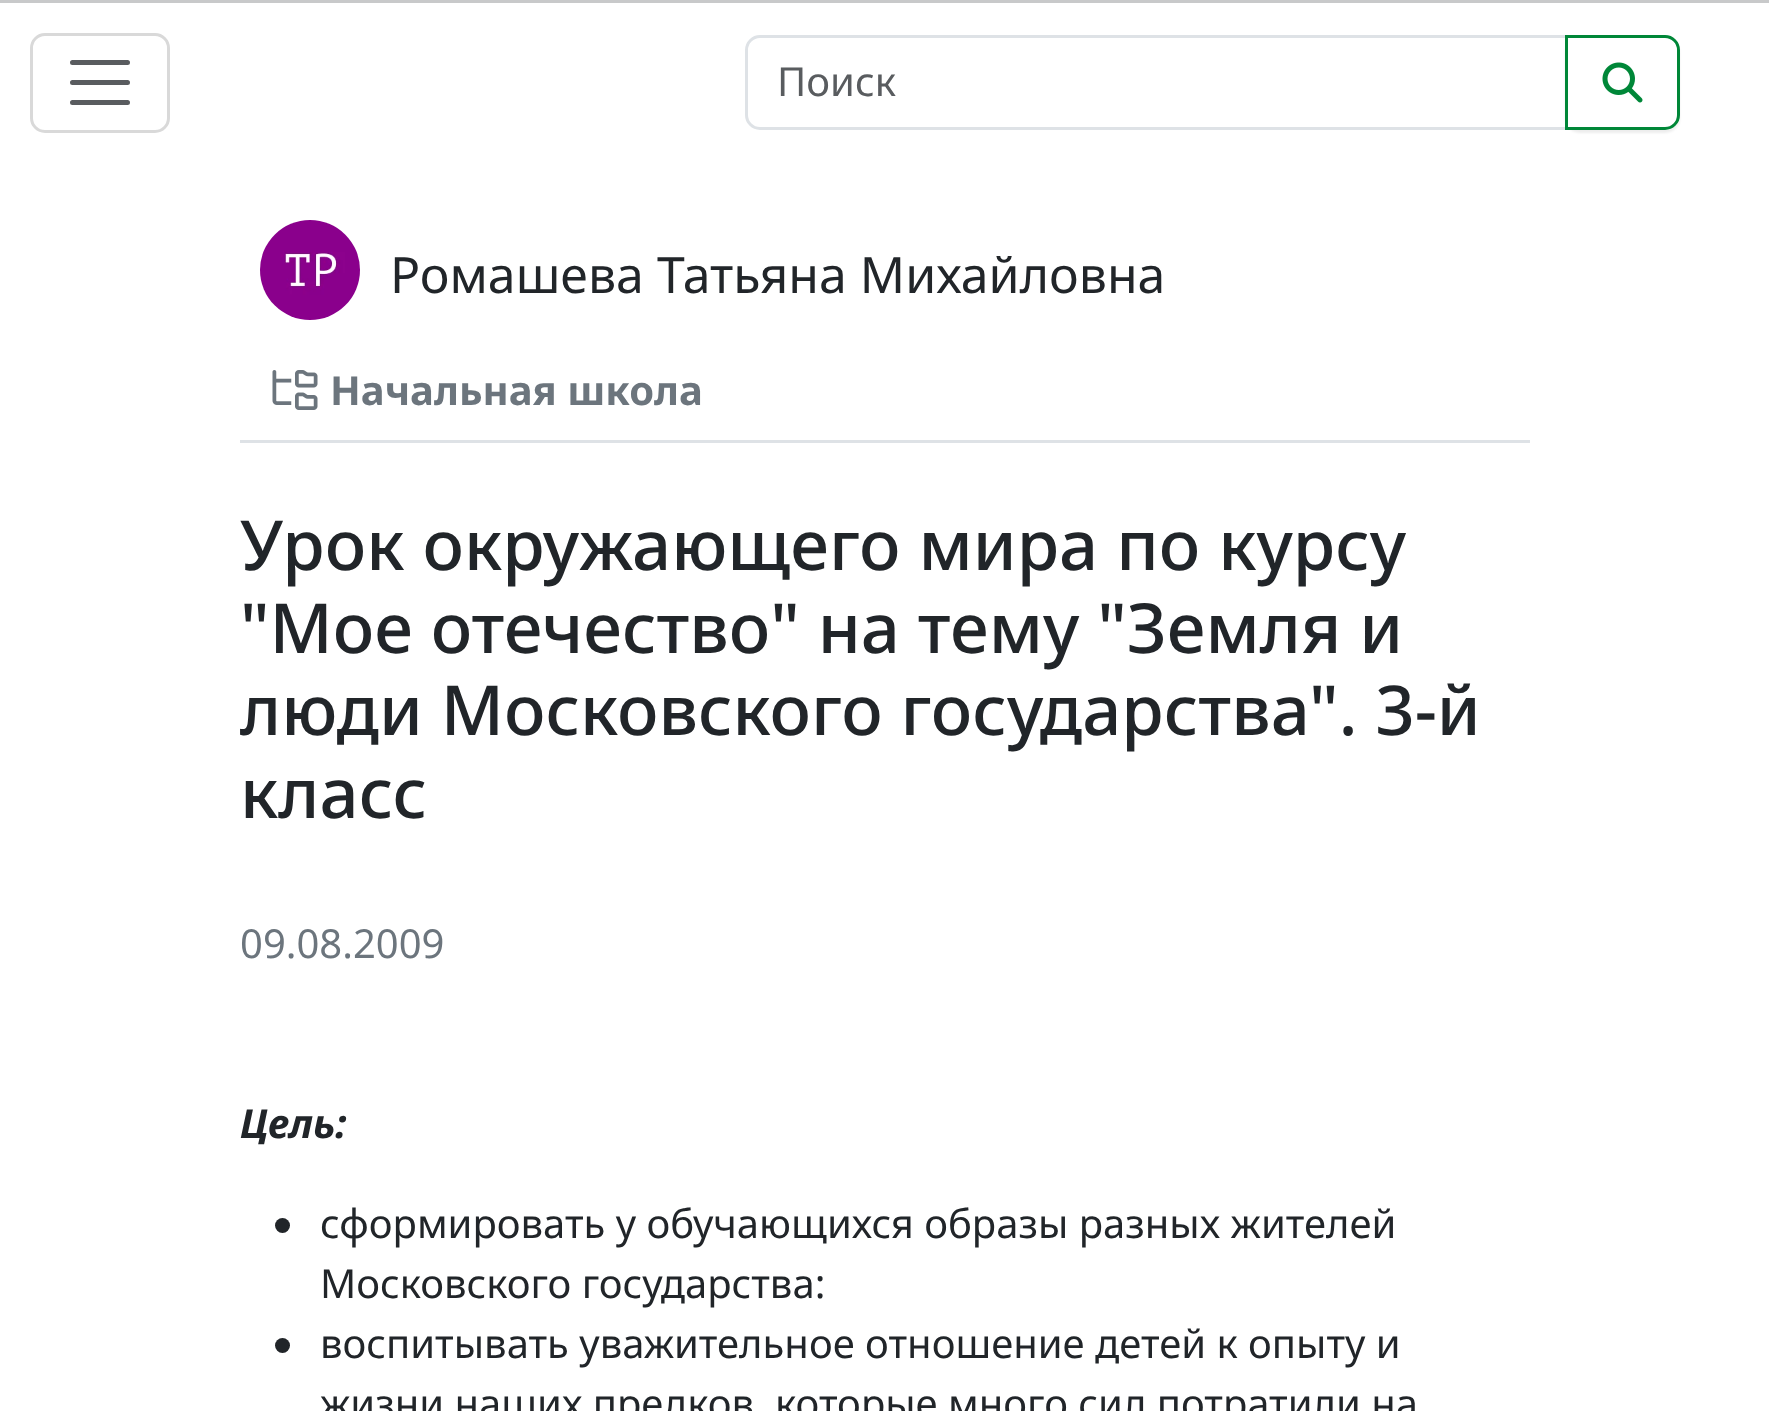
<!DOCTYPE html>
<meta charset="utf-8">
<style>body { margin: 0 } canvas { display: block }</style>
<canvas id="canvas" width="1769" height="1411"></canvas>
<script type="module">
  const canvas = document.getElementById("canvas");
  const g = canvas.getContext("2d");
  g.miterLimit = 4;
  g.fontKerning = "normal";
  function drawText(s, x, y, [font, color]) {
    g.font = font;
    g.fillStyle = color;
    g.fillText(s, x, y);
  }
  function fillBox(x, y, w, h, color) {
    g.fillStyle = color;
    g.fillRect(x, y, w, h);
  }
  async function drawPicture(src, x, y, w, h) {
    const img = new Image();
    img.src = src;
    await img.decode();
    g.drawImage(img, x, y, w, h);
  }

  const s1 = ["40px Noto Sans", "#595C5F"];
  const s2 = ["50px Noto Sans", "#212529"];
  const s3 = ["bold 40px Noto Sans", "#6C757D"];
  const s4 = ["500 68.9px Noto Sans", "#212529"];
  const s5 = ["40px Noto Sans", "#6C757D"];
  const s6 = ["italic bold 40px Noto Sans", "#212529"];
  const s7 = ["40px Noto Sans", "#212529"];

  fillBox(0, 0, 1769, 1411, "#FFFFFF");
  fillBox(0, 0, 1769, 3, "#C8C9CA");
  g.beginPath();
  g.roundRect(31.5, 34.5, 137, 97, 13.5);
  g.strokeStyle = "#D9D9D9";
  g.lineWidth = 3;
  g.stroke();
  g.beginPath();
  g.moveTo(72.5, 62.5);
  g.lineTo(127.5, 62.5);
  g.moveTo(72.5, 82.5);
  g.lineTo(127.5, 82.5);
  g.moveTo(72.5, 102.5);
  g.lineTo(127.5, 102.5);
  g.strokeStyle = "#595C5F";
  g.lineWidth = 5;
  g.lineCap = "round";
  g.stroke();
  g.beginPath();
  g.roundRect(746.5, 36.5, 820, 92, [13.5, 0, 0, 13.5]);
  g.strokeStyle = "#DEE2E6";
  g.lineWidth = 3;
  g.stroke();
  drawText("Поиск", 777, 96, s1);
  g.save();
  g.beginPath();
  g.moveTo(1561, 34);
  g.lineTo(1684, 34);
  g.lineTo(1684, 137);
  g.lineTo(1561, 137);
  g.closePath();
  g.moveTo(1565, 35);
  g.lineTo(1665, 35);
  g.bezierCurveTo(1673.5, 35, 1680, 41.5, 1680, 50);
  g.lineTo(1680, 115);
  g.bezierCurveTo(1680, 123.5, 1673.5, 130, 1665, 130);
  g.lineTo(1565, 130);
  g.closePath();
  g.clip("evenodd");
  g.fillStyle = "rgba(0, 0, 0, 0.07)";
  g.filter = "blur(1px)";
  g.beginPath();
  g.roundRect(1565, 38, 115, 95, 15);
  g.fill();
  g.filter = "none";
  g.restore();
  g.beginPath();
  g.roundRect(1566.5, 36.5, 112, 92, [0, 13.5, 13.5, 0]);
  g.strokeStyle = "#008738";
  g.stroke();
  await drawPicture("pic1.png", 1602, 62, 41, 41);
  fillBox(240, 440, 1290, 3, "#DEE2E6");
  await drawPicture("pic2.png", 260, 220, 100, 100);
  drawText("Ромашева Татьяна Михайловна", 390, 293, s2);
  await drawPicture("pic3.png", 272, 370, 46, 40);
  drawText("Начальная школа", 330, 405, s3);
  drawText("Урок окружающего мира по курсу", 240, 570, s4);
  drawText("\"Мое отечество\" на тему \"Земля и", 240, 653, s4);
  drawText("люди Московского государства\". 3-й", 240, 735, s4);
  drawText("класс", 240, 818, s4);
  drawText("09.08.2009", 240, 958, s5);
  drawText("Цель:", 240, 1138, s6);
  g.beginPath();
  g.arc(282.5, 1225.5, 7.5, 0, Math.PI * 2);
  g.fill();
  drawText("сформировать у обучающихся образы разных жителей", 320, 1238, s7);
  drawText("Московского государства:", 320, 1298, s7);
  g.beginPath();
  g.arc(282.5, 1345.5, 7.5, 0, Math.PI * 2);
  g.fill();
  drawText("воспитывать уважительное отношение детей к опыту и", 320, 1358, s7);
  drawText("жизни наших предков, которые много сил потратили на", 320, 1418, s7);
</script>
